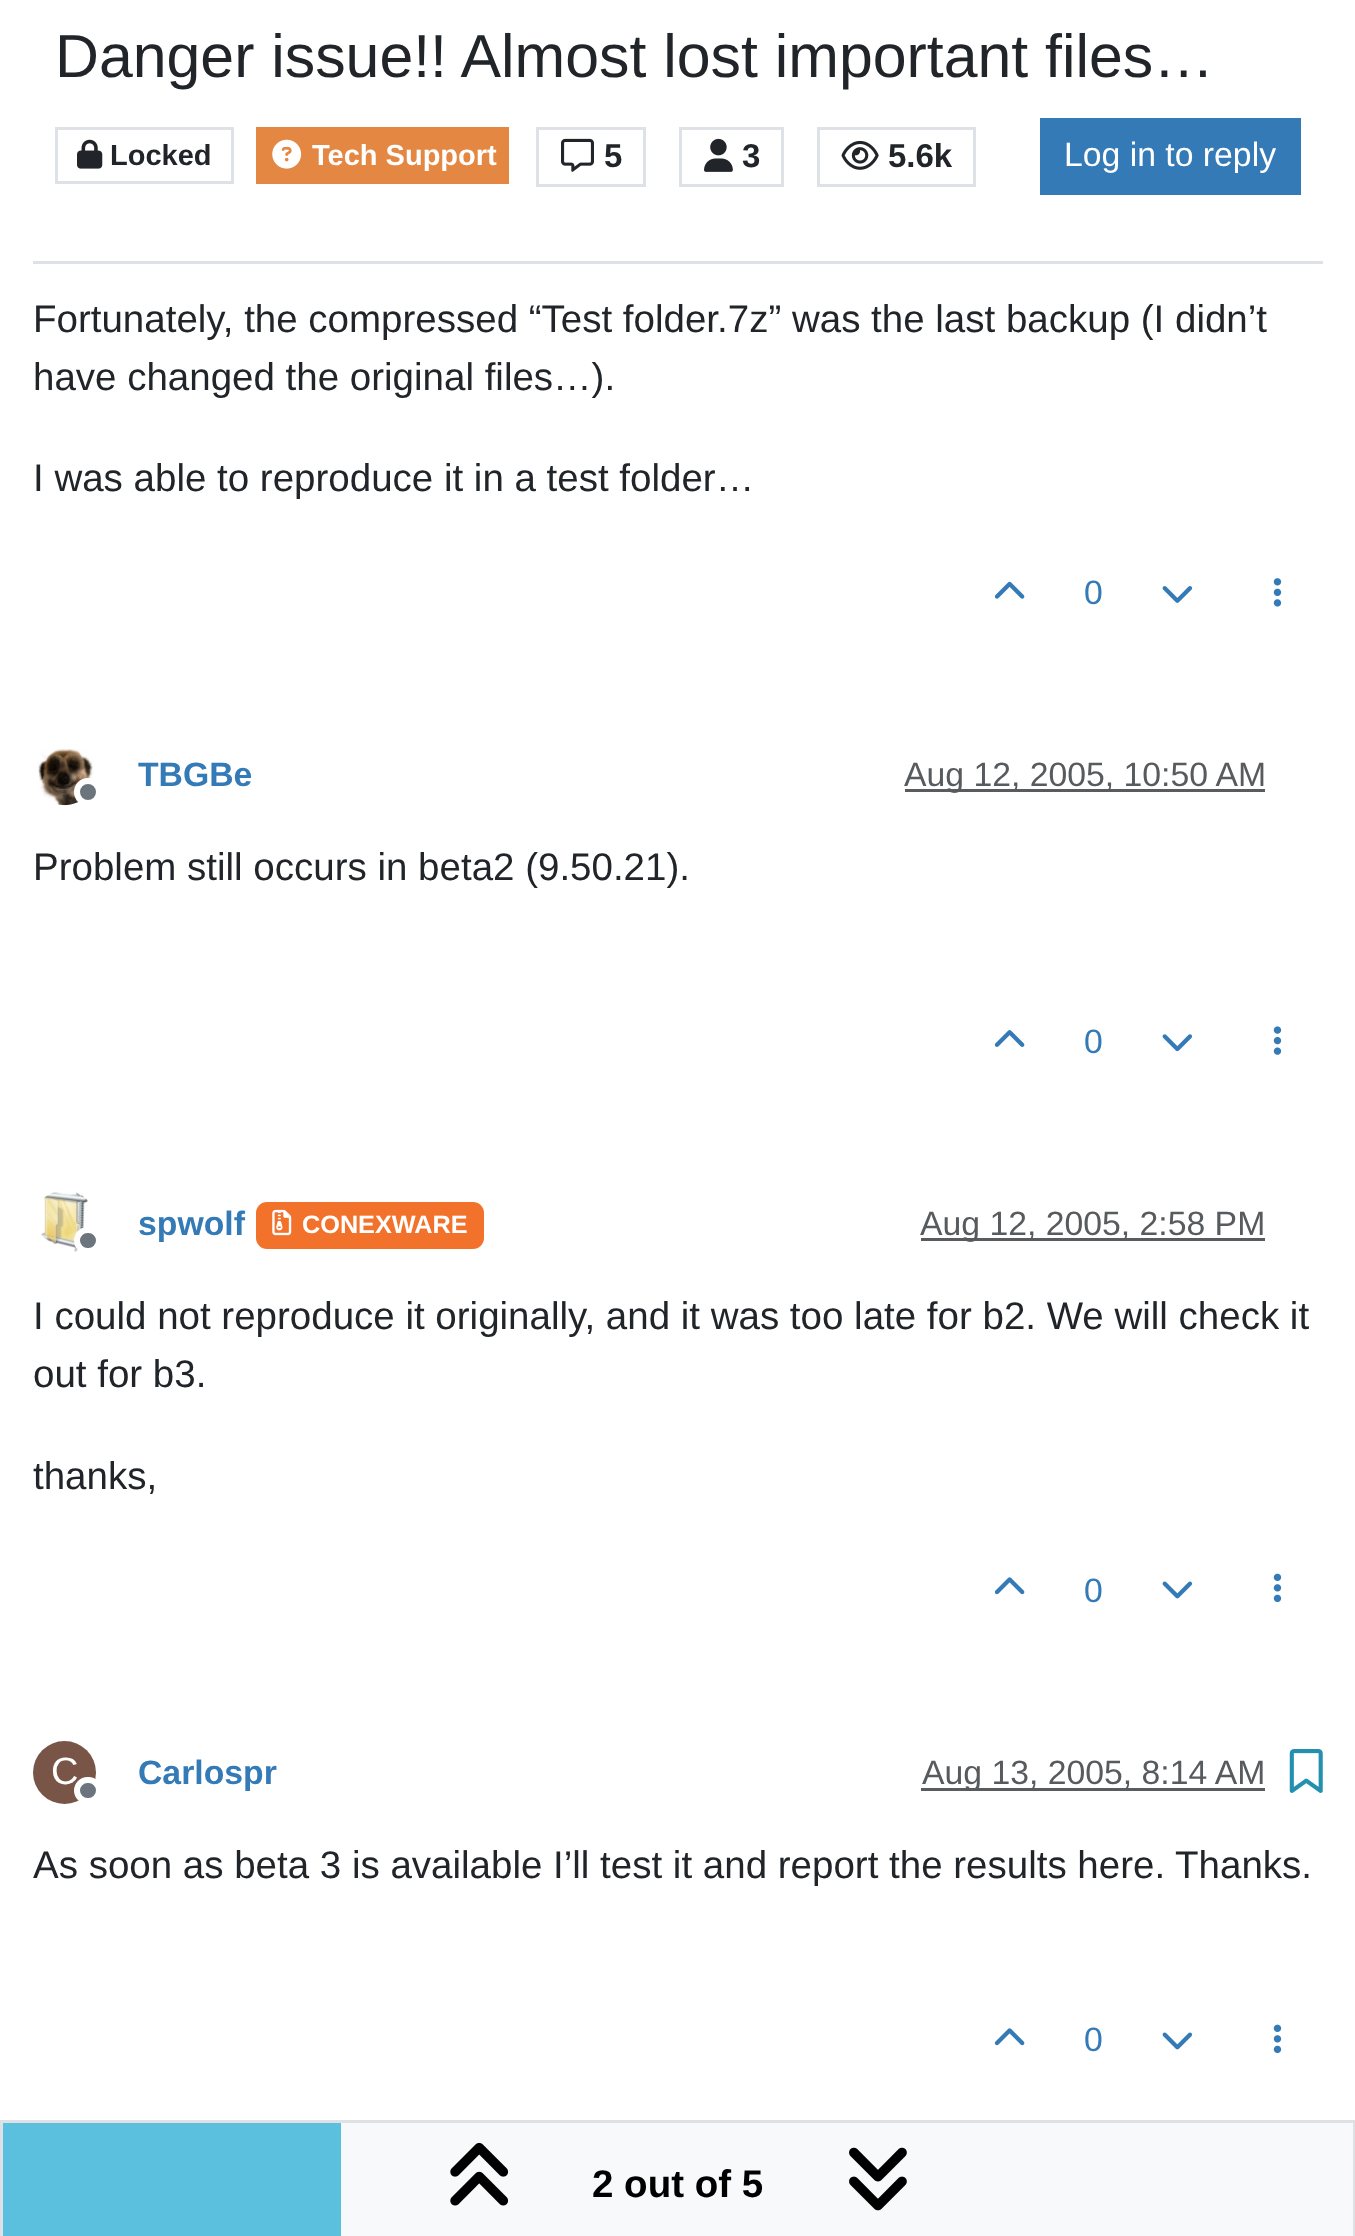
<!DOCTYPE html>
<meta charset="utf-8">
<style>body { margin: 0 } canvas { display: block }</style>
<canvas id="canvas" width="1355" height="2236"></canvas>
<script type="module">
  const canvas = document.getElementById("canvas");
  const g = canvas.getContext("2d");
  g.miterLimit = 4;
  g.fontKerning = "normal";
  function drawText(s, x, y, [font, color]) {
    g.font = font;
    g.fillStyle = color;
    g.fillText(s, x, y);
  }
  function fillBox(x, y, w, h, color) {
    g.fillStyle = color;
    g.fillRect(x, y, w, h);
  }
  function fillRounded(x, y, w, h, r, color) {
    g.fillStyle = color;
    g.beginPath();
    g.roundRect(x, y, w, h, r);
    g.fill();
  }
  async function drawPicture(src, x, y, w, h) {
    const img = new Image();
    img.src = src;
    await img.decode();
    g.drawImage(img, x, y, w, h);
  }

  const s1 = ["60.8px Liberation Sans", "#212529"];
  const s2 = ["bold 29px Liberation Sans", "#212529"];
  const s3 = ["bold 29px Liberation Sans", "#FFFFFF"];
  const s4 = ["bold 33px Liberation Sans", "#212529"];
  const s5 = ["33.75px Liberation Sans", "#FFFFFF"];
  const s6 = ["38.5px Liberation Sans", "#212529"];
  const s7 = ["33.75px Liberation Sans", "#337AB7"];
  const s8 = ["bold 33.75px Liberation Sans", "#337AB7"];
  const s9 = ["33.75px Liberation Sans", "#585B5E"];
  const s10 = ["bold 25.25px Liberation Sans", "#FFFFFF"];
  const s11 = ["38px Liberation Sans", "#FFFFFF"];
  const s12 = ["bold 38.5px Liberation Sans", "#000000"];

  fillBox(0, 0, 1355, 2236, "#FFFFFF");
  fillBox(33, 261, 1290, 3, "#DEE2E6");
  drawText("Danger issue!! Almost lost important files…", 55, 77, s1);
  g.strokeStyle = "#DEE2E6";
  g.lineWidth = 3;
  g.strokeRect(56.5, 128.5, 176, 54);
  await drawPicture("pic1.png", 77, 139, 26, 30);
  drawText("Locked", 110, 165, s2);
  fillBox(256, 127, 253, 57, "#E48743");
  await drawPicture("pic2.png", 272, 139, 30, 30);
  drawText("Tech Support", 312, 165, s3);
  g.strokeRect(537.5, 128.5, 107, 57);
  await drawPicture("pic3.png", 561, 138, 33, 34);
  drawText("5", 604, 167, s4);
  g.strokeRect(680.5, 128.5, 102, 57);
  await drawPicture("pic4.png", 704, 138, 29, 34);
  drawText("3", 742, 167, s4);
  g.strokeRect(818.5, 128.5, 156, 57);
  await drawPicture("pic5.png", 841, 140, 38, 30);
  drawText("5.6k", 888, 167, s4);
  fillBox(1040, 118, 261, 77, "#337AB7");
  drawText("Log in to reply", 1064, 166, s5);
  drawText("Fortunately, the compressed “Test folder.7z” was the last backup (I didn’t", 33, 332, s6);
  drawText("have changed the original files…).", 33, 390, s6);
  drawText("I was able to reproduce it in a test folder…", 33, 491, s6);
  await drawPicture("pic6.png", 994, 581, 31, 18);
  drawText("0", 1084, 604, s7);
  await drawPicture("pic7.png", 1162, 586, 31, 17);
  await drawPicture("pic8.png", 1273, 578, 9, 29);
  await drawPicture("pic9.png", 38, 749, 55, 57);
  g.fillStyle = "#6C757D";
  g.beginPath();
  g.arc(88, 792, 11, 0, Math.PI * 2);
  g.fill();
  g.strokeStyle = "#FFFFFF";
  g.lineWidth = 6;
  g.stroke();
  drawText("TBGBe", 138, 786, s8);
  fillBox(905, 789, 360, 3, "#595C5F");
  drawText("Aug 12, 2005, 10:50 AM", 904, 786, s9);
  drawText("Problem still occurs in beta2 (9.50.21).", 33, 880, s6);
  await drawPicture("pic10.png", 994, 1030, 31, 17);
  drawText("0", 1084, 1053, s7);
  await drawPicture("pic11.png", 1162, 1034, 31, 18);
  await drawPicture("pic12.png", 1273, 1026, 9, 29);
  await drawPicture("pic13.png", 41, 1192, 47, 60);
  g.fillStyle = "#6C757D";
  g.beginPath();
  g.roundRect(77, 1230, 22, 21, 10.5);
  g.fill();
  g.stroke();
  drawText("spwolf", 138, 1235, s8);
  fillRounded(256, 1202, 228, 47, 11, "#F2722C");
  await drawPicture("pic14.png", 272, 1209, 20, 27);
  drawText("CONEXWARE", 302, 1233, s10);
  fillBox(921, 1238, 344, 3, "#595C5F");
  drawText("Aug 12, 2005, 2:58 PM", 920, 1235, s9);
  drawText("I could not reproduce it originally, and it was too late for b2. We will check it", 33, 1329, s6);
  drawText("out for b3.", 33, 1387, s6);
  drawText("thanks,", 33, 1489, s6);
  await drawPicture("pic15.png", 994, 1577, 31, 18);
  drawText("0", 1084, 1602, s7);
  await drawPicture("pic16.png", 1162, 1581, 31, 18);
  await drawPicture("pic17.png", 1273, 1573, 9, 30);
  g.fillStyle = "#795548";
  g.beginPath();
  g.arc(64.5, 1772.5, 31.5, 0, Math.PI * 2);
  g.fill();
  drawText("C", 51, 1784, s11);
  g.fillStyle = "#6C757D";
  g.beginPath();
  g.roundRect(77, 1780, 22, 21, 10.5);
  g.fill();
  g.stroke();
  drawText("Carlospr", 138, 1784, s8);
  fillBox(921, 1788, 344, 3, "#595C5F");
  drawText("Aug 13, 2005, 8:14 AM", 922, 1784, s9);
  await drawPicture("pic18.png", 1289, 1749, 34, 44);
  drawText("As soon as beta 3 is available I’ll test it and report the results here. Thanks.", 33, 1878, s6);
  await drawPicture("pic15.png", 994, 2028, 31, 18);
  drawText("0", 1084, 2051, s7);
  await drawPicture("pic16.png", 1162, 2032, 31, 18);
  await drawPicture("pic17.png", 1273, 2024, 9, 30);
  fillBox(341, 2123, 1012, 113, "#F8F9FA");
  g.strokeStyle = "#DEE2E6";
  g.lineWidth = 3;
  g.strokeRect(1.5, 2121.5, 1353, 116);
  fillBox(3, 2123, 338, 113, "#5BC0DE");
  await drawPicture("pic19.png", 450, 2142, 59, 64);
  drawText("2 out of 5", 592, 2197, s12);
  await drawPicture("pic20.png", 849, 2147, 58, 64);
</script>
